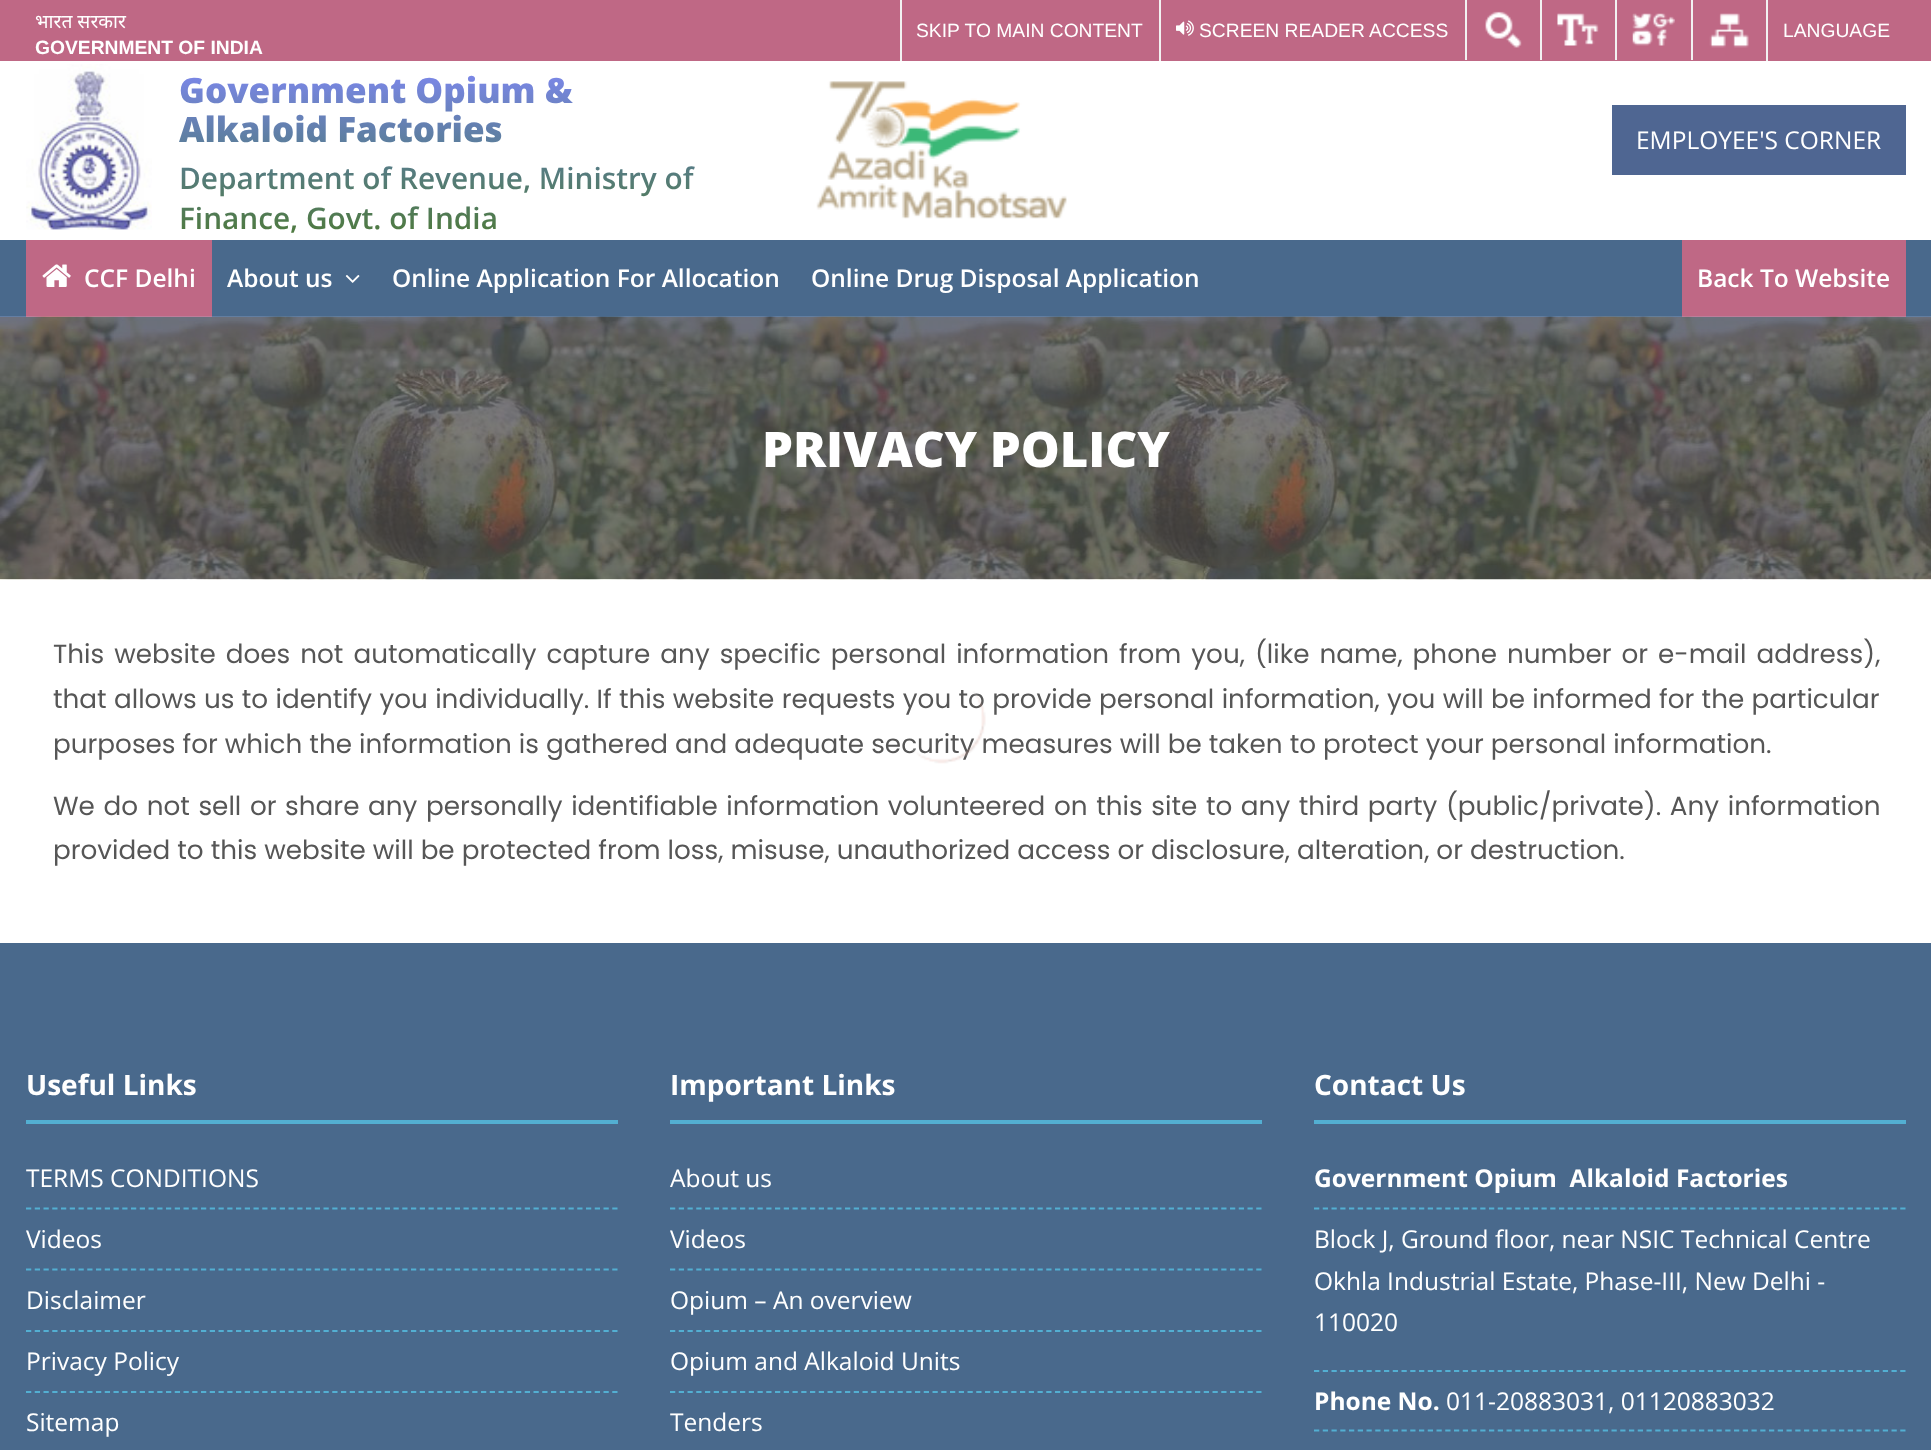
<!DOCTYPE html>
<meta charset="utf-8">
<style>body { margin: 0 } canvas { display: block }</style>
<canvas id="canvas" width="1931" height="1450"></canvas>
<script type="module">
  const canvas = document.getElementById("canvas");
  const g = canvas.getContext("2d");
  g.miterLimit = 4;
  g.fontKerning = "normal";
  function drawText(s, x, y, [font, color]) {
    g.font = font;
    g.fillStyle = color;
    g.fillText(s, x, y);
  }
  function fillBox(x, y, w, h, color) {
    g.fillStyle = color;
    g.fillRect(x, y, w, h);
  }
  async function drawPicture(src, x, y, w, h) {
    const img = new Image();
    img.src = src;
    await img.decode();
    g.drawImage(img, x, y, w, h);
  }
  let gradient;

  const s1 = ["19.25px Noto Sans", "#FFFFFF"];
  const s2 = ["bold 19.25px Liberation Sans", "#FFFFFF"];
  const s3 = ["19.25px Liberation Sans", "#FFFFFF"];
  const s4 = ["24.5px Open Sans", "#FFFFFF"];
  const s5 = ["600 24.5px Open Sans", "#FFFFFF"];
  const s6 = ["800 49px Open Sans", "#FFFFFF"];
  const s7 = ["26.25px Poppins", "#565656"];
  const s8 = ["bold 28px Open Sans", "#FFFFFF"];
  const s9 = ["bold 24.5px Open Sans", "#FFFFFF"];

  fillBox(0, 0, 1931, 1450, "#FFFFFF");
  fillBox(0, 0, 1931, 61, "#BF6885");
  drawText("भारत सरकार", 35, 28, s1);
  drawText("GOVERNMENT OF INDIA", 35, 54, s2);
  fillBox(900, 0, 2, 61, "#F2F2F2");
  drawText("SKIP TO MAIN CONTENT", 916, 37, s3);
  fillBox(1159, 0, 2, 61, "#F2F2F2");
  await drawPicture("pic1.png", 1176, 20, 18, 16);
  drawText("SCREEN READER ACCESS", 1199, 37, s3);
  fillBox(1465, 0, 2, 60, "#F2F2F2");
  await drawPicture("pic2.png", 1485, 11, 37, 37);
  fillBox(1540, 0, 2, 60, "#F2F2F2");
  await drawPicture("pic3.png", 1557, 13, 42, 33);
  fillBox(1615, 0, 2, 60, "#F2F2F2");
  await drawPicture("pic4.png", 1632, 13, 43, 33);
  fillBox(1691, 0, 2, 60, "#F2F2F2");
  await drawPicture("pic5.png", 1709, 13, 40, 35);
  fillBox(1766, 0, 2, 61, "#F2F2F2");
  drawText("LANGUAGE", 1783, 37, s3);
  await drawPicture("pic6.png", 26, 64, 126, 166);
  g.font = "800 35px Open Sans";
  gradient = g.createLinearGradient(452, 61, 452, 238);
  gradient.addColorStop(0, "#8189F6");
  gradient.addColorStop(0.5, "#597D96");
  gradient.addColorStop(1, "#4E7A3B");
  g.fillStyle = gradient;
  g.fillText("Government Opium &", 179, 103);
  g.fillText("Alkaloid Factories", 179, 142);
  g.font = "600 29.75px Open Sans";
  g.fillText("Department of Revenue, Ministry of", 179, 189);
  g.fillText("Finance, Govt. of India", 179, 229);
  await drawPicture("pic7.png", 816, 81, 251, 138);
  fillBox(1612, 105, 294, 70, "#4F6692");
  drawText("EMPLOYEE'S CORNER", 1636, 149, s4);
  fillBox(0, 240, 1931, 77, "#49698C");
  fillBox(26, 240, 186, 77, "#BF6885");
  await drawPicture("pic8.png", 42, 264, 29, 23);
  drawText("CCF Delhi", 84, 287, s5);
  drawText("About us", 227, 287, s5);
  await drawPicture("pic9.png", 345, 275, 15, 8);
  drawText("Online Application For Allocation", 392, 287, s5);
  drawText("Online Drug Disposal Application", 811, 287, s5);
  fillBox(1682, 240, 224, 77, "#BF6885");
  drawText("Back To Website", 1697, 287, s5);
  await drawPicture("pic10.png", 0, 316, 1931, 264);
  drawText("PRIVACY POLICY", 762, 467, s6);
  g.wordSpacing = "3px";
  drawText("This website does not automatically capture any specific personal information from you, (like name, phone number or e-mail address),", 53, 663, s7);
  g.wordSpacing = "0.3px";
  drawText("that allows us to identify you individually. If this website requests you to provide personal information, you will be informed for the particular", 53, 708, s7);
  g.wordSpacing = "0px";
  drawText("purposes for which the information is gathered and adequate security measures will be taken to protect your personal information.", 53, 753, s7);
  g.wordSpacing = "1.6px";
  drawText("We do not sell or share any personally identifiable information volunteered on this site to any third party (public/private). Any information", 53, 815, s7);
  g.wordSpacing = "0px";
  drawText("provided to this website will be protected from loss, misuse, unauthorized access or disclosure, alteration, or destruction.", 53, 859, s7);
  await drawPicture("pic11.png", 911, 691, 75, 73);
  fillBox(0, 943, 1931, 507, "#49698C");
  drawText("Useful Links", 26, 1095, s8);
  fillBox(26, 1120, 592, 4, "#53AFD2");
  g.beginPath();
  g.moveTo(26, 1208.5);
  g.lineTo(618, 1208.5);
  g.strokeStyle = "#53AFD2";
  g.lineWidth = 1.8;
  g.setLineDash([5.25, 3.5]);
  g.stroke();
  drawText("TERMS CONDITIONS", 26, 1187, s4);
  g.beginPath();
  g.moveTo(26, 1269.5);
  g.lineTo(618, 1269.5);
  g.stroke();
  drawText("Videos", 26, 1248, s4);
  g.beginPath();
  g.moveTo(26, 1331);
  g.lineTo(618, 1331);
  g.stroke();
  drawText("Disclaimer", 26, 1309, s4);
  g.beginPath();
  g.moveTo(26, 1392);
  g.lineTo(618, 1392);
  g.stroke();
  drawText("Privacy Policy", 26, 1370, s4);
  drawText("Sitemap", 26, 1431, s4);
  drawText("Important Links", 670, 1095, s8);
  fillBox(670, 1120, 592, 4, "#53AFD2");
  g.beginPath();
  g.moveTo(670, 1208.5);
  g.lineTo(1262, 1208.5);
  g.stroke();
  drawText("About us", 670, 1187, s4);
  g.beginPath();
  g.moveTo(670, 1269.5);
  g.lineTo(1262, 1269.5);
  g.stroke();
  drawText("Videos", 670, 1248, s4);
  g.beginPath();
  g.moveTo(670, 1331);
  g.lineTo(1262, 1331);
  g.stroke();
  drawText("Opium – An overview", 670, 1309, s4);
  g.beginPath();
  g.moveTo(670, 1392);
  g.lineTo(1262, 1392);
  g.stroke();
  drawText("Opium and Alkaloid Units", 670, 1370, s4);
  drawText("Tenders", 670, 1431, s4);
  drawText("Contact Us", 1314, 1095, s8);
  fillBox(1314, 1120, 592, 4, "#53AFD2");
  g.beginPath();
  g.moveTo(1314, 1208.5);
  g.lineTo(1906, 1208.5);
  g.stroke();
  drawText("Government Opium  Alkaloid Factories", 1314, 1187, s9);
  g.beginPath();
  g.moveTo(1314, 1371);
  g.lineTo(1906, 1371);
  g.stroke();
  drawText("Block J, Ground floor, near NSIC Technical Centre", 1314, 1248, s4);
  drawText("Okhla Industrial Estate, Phase-III, New Delhi -", 1314, 1290, s4);
  drawText("110020", 1314, 1331, s4);
  g.beginPath();
  g.moveTo(1314, 1430.5);
  g.lineTo(1906, 1430.5);
  g.stroke();
  drawText("Phone No.", 1314, 1410, s9);
  drawText("011-20883031, 01120883032", 1446, 1410, s4);
</script>
